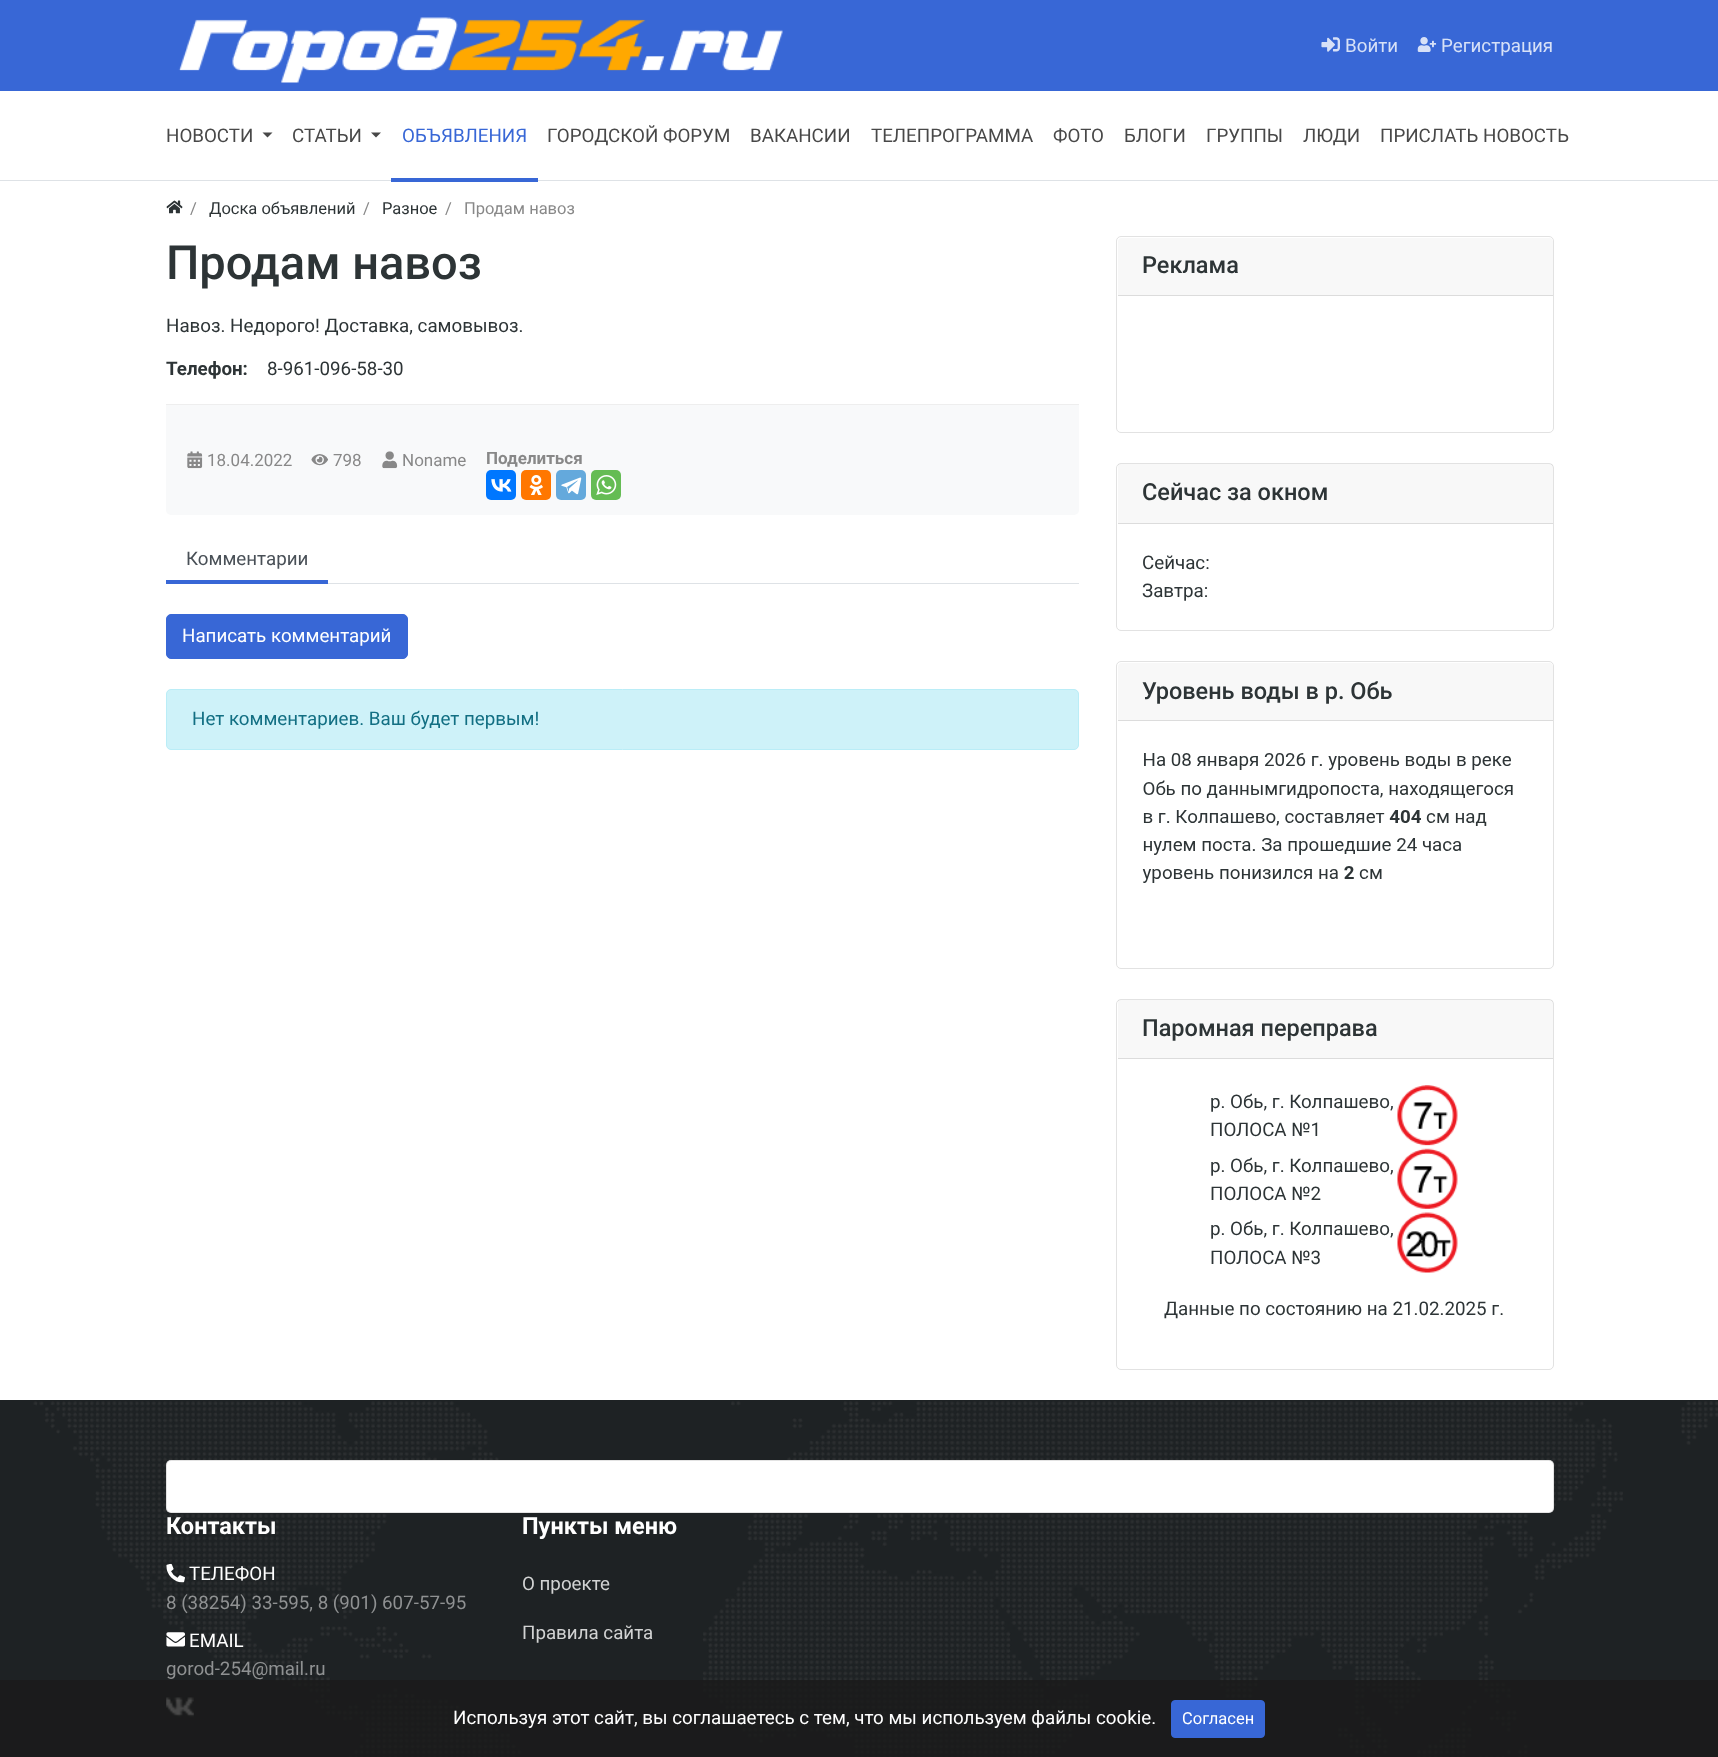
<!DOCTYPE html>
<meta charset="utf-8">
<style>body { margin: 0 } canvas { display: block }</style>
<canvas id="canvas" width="1718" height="1757"></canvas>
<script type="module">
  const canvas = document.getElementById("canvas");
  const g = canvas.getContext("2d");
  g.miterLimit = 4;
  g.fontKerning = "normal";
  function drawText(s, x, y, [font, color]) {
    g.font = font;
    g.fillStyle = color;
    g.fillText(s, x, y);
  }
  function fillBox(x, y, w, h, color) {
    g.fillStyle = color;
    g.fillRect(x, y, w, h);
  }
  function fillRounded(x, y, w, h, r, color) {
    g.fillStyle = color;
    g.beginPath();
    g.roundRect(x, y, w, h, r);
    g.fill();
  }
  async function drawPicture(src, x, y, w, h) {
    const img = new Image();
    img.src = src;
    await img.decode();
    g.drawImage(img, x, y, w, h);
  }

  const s1 = ["18.75px Roboto", "#D7E1F7"];
  const s2 = ["18.75px Roboto", "#484848"];
  const s3 = ["18.75px Roboto", "#3867D6"];
  const s4 = ["16.5px Roboto", "#888888"];
  const s5 = ["16.5px Roboto", "#2D3436"];
  const s6 = ["500 47px Roboto", "#2D3436"];
  const s7 = ["18.75px Roboto", "#2D3436"];
  const s8 = ["bold 18.75px Roboto", "#2D3436"];
  const s9 = ["17px Roboto", "#888888"];
  const s10 = ["bold 17px Roboto", "#888888"];
  const s11 = ["18.75px Roboto", "#495057"];
  const s12 = ["18.75px Roboto", "#FFFFFF"];
  const s13 = ["18.75px Roboto", "#126F83"];
  const s14 = ["500 23.5px Roboto", "#2D3436"];
  const s15 = ["bold 23.5px Roboto", "#FFFFFF"];
  const s16 = ["18.75px Roboto", "#8F9192"];
  const s17 = ["18.75px Roboto", "#D2D3D3"];
  const s18 = ["16.5px Roboto", "#FFFFFF"];

  fillBox(0, 0, 1718, 1757, "#FFFFFF");
  fillBox(0, 0, 1718, 91, "#3867D6");
  await drawPicture("pic1.png", 178, 17, 605, 66);
  await drawPicture("pic2.png", 1321, 37, 19, 15);
  drawText("Войти", 1345, 52, s1);
  await drawPicture("pic3.png", 1417, 37, 20, 15);
  drawText("Регистрация", 1441, 52, s1);
  fillBox(0, 180, 1718, 1, "#DEE2E6");
  drawText("НОВОСТИ", 166, 142, s2);
  g.beginPath();
  g.moveTo(262.5, 132.5);
  g.lineTo(272.5, 132.5);
  g.lineTo(267.5, 137.5);
  g.closePath();
  g.fill();
  drawText("СТАТЬИ", 292, 142, s2);
  g.beginPath();
  g.moveTo(371, 132.5);
  g.lineTo(381, 132.5);
  g.lineTo(376, 137.5);
  g.closePath();
  g.fill();
  drawText("ОБЪЯВЛЕНИЯ", 402, 142, s3);
  fillBox(391, 178, 147, 4, "#3867D6");
  drawText("ГОРОДСКОЙ ФОРУМ", 547, 142, s2);
  drawText("ВАКАНСИИ", 750, 142, s2);
  drawText("ТЕЛЕПРОГРАММА", 871, 142, s2);
  drawText("ФОТО", 1053, 142, s2);
  drawText("БЛОГИ", 1124, 142, s2);
  drawText("ГРУППЫ", 1206, 142, s2);
  drawText("ЛЮДИ", 1303, 142, s2);
  drawText("ПРИСЛАТЬ НОВОСТЬ", 1380, 142, s2);
  await drawPicture("pic4.png", 166, 200, 17, 14);
  drawText("/", 190, 214, s4);
  drawText("Доска объявлений", 209, 214, s5);
  drawText("/", 363, 214, s4);
  drawText("Разное", 382, 214, s5);
  drawText("/", 445, 214, s4);
  drawText("Продам навоз", 464, 214, s4);
  drawText("Продам навоз", 166, 279, s6);
  drawText("Навоз. Недорого! Доставка, самовывоз.", 166, 332, s7);
  drawText("Телефон:", 166, 375, s8);
  drawText("8-961-096-58-30", 267, 375, s7);
  g.fillStyle = "#F8F9FA";
  g.beginPath();
  g.roundRect(166, 404, 913, 111, [0, 0, 5, 5]);
  g.fill();
  fillBox(166, 404, 913, 1, "#EEEEEE");
  await drawPicture("pic5.png", 187, 451, 16, 18);
  drawText("18.04.2022", 207, 466, s9);
  await drawPicture("pic6.png", 311, 454, 17, 12);
  drawText("798", 333, 466, s9);
  await drawPicture("pic7.png", 382, 451, 16, 18);
  drawText("Noname", 402, 466, s9);
  drawText("Поделиться", 486, 464, s10);
  fillRounded(486, 470, 30, 30, 5, "#0077FF");
  await drawPicture("pic8.png", 491, 479, 21, 13);
  fillRounded(521, 470, 30, 30, 5, "#FF7700");
  await drawPicture("pic9.png", 529, 475, 14, 20);
  fillRounded(556, 470, 30, 30, 5, "#64A9DC");
  await drawPicture("pic10.png", 561, 477, 21, 18);
  fillRounded(591, 470, 30, 30, 5, "#65BC54");
  await drawPicture("pic11.png", 596, 475, 21, 20);
  fillBox(328, 583, 751, 1, "#DEE2E6");
  drawText("Комментарии", 186, 565, s11);
  fillBox(166, 580, 162, 4, "#3867D6");
  g.beginPath();
  g.roundRect(166.5, 614.5, 241, 44, 4.5);
  g.fill();
  g.strokeStyle = "#3867D6";
  g.stroke();
  drawText("Написать комментарий", 182, 642, s12);
  g.fillStyle = "#CEF2F9";
  g.beginPath();
  g.roundRect(166.5, 689.5, 912, 60, 4.5);
  g.fill();
  g.strokeStyle = "#BAEDF7";
  g.stroke();
  drawText("Нет комментариев. Ваш будет первым!", 192, 725, s13);
  g.beginPath();
  g.roundRect(1116.5, 236.5, 437, 196, 4.5);
  g.strokeStyle = "#E2E2E2";
  g.stroke();
  g.fillStyle = "#F8F8F8";
  g.beginPath();
  g.roundRect(1118, 238, 435, 58, [4, 4, 0, 0]);
  g.fill();
  fillBox(1118, 295, 435, 1, "#DCDCDC");
  drawText("Реклама", 1142, 273, s14);
  g.beginPath();
  g.roundRect(1116.5, 463.5, 437, 167, 4.5);
  g.stroke();
  fillBox(1118, 464, 435, 59, "rgba(26, 26, 26, 0.03)");
  fillBox(1118, 523, 435, 1, "#DCDCDC");
  drawText("Сейчас за окном", 1142, 500, s14);
  drawText("Сейчас:", 1142, 569, s7);
  drawText("Завтра:", 1142, 597, s7);
  g.beginPath();
  g.roundRect(1116.5, 661.5, 437, 307, 4.5);
  g.stroke();
  g.fillStyle = "#F8F8F8";
  g.beginPath();
  g.roundRect(1118, 663, 435, 58, [4, 4, 0, 0]);
  g.fill();
  fillBox(1118, 720, 435, 1, "#DCDCDC");
  drawText("Уровень воды в р. Обь", 1142, 699, s14);
  await drawPicture("pic12.png", 1142, 753, 371, 130);
  g.beginPath();
  g.roundRect(1116.5, 999.5, 437, 370, 4.5);
  g.stroke();
  fillBox(1118, 1000, 435, 58, "rgba(26, 26, 26, 0.03)");
  fillBox(1118, 1058, 435, 1, "#DCDCDC");
  drawText("Паромная переправа", 1142, 1036, s14);
  drawText("р. Обь, г. Колпашево,", 1210, 1108, s7);
  drawText("ПОЛОСА №1", 1210, 1136, s7);
  await drawPicture("pic13.png", 1397, 1085, 61, 61);
  drawText("р. Обь, г. Колпашево,", 1210, 1172, s7);
  drawText("ПОЛОСА №2", 1210, 1200, s7);
  await drawPicture("pic14.png", 1397, 1148, 61, 61);
  drawText("р. Обь, г. Колпашево,", 1210, 1235, s7);
  drawText("ПОЛОСА №3", 1210, 1264, s7);
  await drawPicture("pic15.png", 1397, 1212, 61, 61);
  drawText("Данные по состоянию на 21.02.2025 г.", 1164, 1315, s7);
  fillBox(0, 1400, 1718, 357, "#1E2224");
  await drawPicture("pic16.png", 33, 1401, 1685, 356);
  fillRounded(166, 1460, 1388, 53, 5, "#FFFFFF");
  g.beginPath();
  g.roundRect(166.5, 1460.5, 1387, 52, 4.5);
  g.strokeStyle = "rgba(26, 26, 26, 0.12)";
  g.stroke();
  drawText("Контакты", 166, 1534, s15);
  await drawPicture("pic17.png", 166, 1563, 19, 20);
  drawText("ТЕЛЕФОН", 189, 1580, s12);
  drawText("8 (38254) 33-595, 8 (901) 607-57-95", 166, 1609, s16);
  await drawPicture("pic18.png", 166, 1632, 19, 15);
  drawText("EMAIL", 189, 1647, s12);
  drawText("gorod-254@mail.ru", 166, 1675, s16);
  await drawPicture("pic19.png", 166, 1697, 28, 21);
  drawText("Пункты меню", 522, 1534, s15);
  drawText("О проекте", 522, 1590, s17);
  drawText("Правила сайта", 522, 1639, s17);
  fillBox(0, 1680, 1718, 77, "rgba(26, 26, 26, 0.8)");
  drawText("Используя этот сайт, вы соглашаетесь с тем, что мы используем файлы cookie.", 453, 1724, s12);
  g.fillStyle = "#3867D6";
  g.beginPath();
  g.roundRect(1171.5, 1700.5, 93, 37, 3.5);
  g.fill();
  g.strokeStyle = "#3867D6";
  g.stroke();
  drawText("Согласен", 1182, 1724, s18);
</script>
